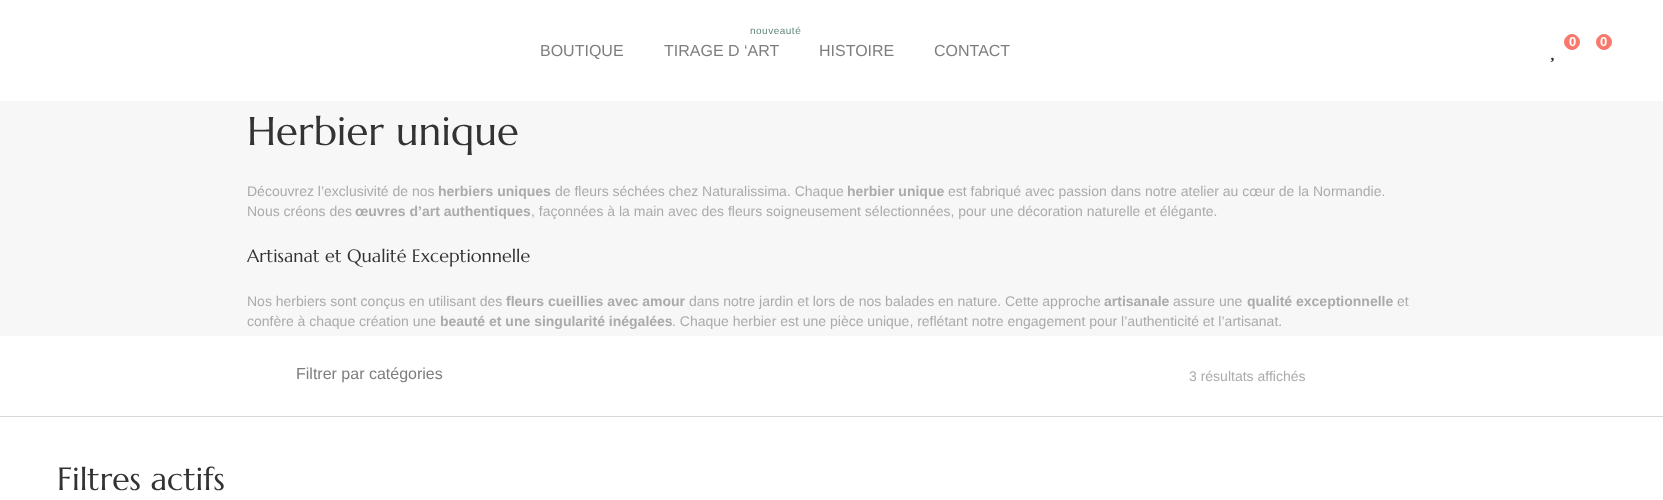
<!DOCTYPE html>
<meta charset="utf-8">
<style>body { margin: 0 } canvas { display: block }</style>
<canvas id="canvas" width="1663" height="500"></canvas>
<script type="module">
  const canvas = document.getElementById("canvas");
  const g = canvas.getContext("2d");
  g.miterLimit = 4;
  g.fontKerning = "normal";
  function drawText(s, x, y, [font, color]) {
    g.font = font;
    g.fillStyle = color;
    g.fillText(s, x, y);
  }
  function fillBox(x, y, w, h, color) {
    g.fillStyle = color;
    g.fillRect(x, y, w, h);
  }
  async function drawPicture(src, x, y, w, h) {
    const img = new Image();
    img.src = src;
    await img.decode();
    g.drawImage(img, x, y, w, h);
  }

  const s1 = ["16px Liberation Sans", "#7E7E7E"];
  const s2 = ["10px Liberation Sans", "#62877E"];
  const s3 = ["bold 13px Liberation Sans", "#FFFFFF"];
  const s4 = ["40px Marcellus", "#333333"];
  const s5 = ["14px Liberation Sans", "#ABABAB"];
  const s6 = ["bold 14px Liberation Sans", "#ABABAB"];
  const s7 = ["18px Marcellus", "#333333"];
  const s8 = ["32px Marcellus", "#333333"];

  fillBox(0, 0, 1663, 500, "#FFFFFF");
  drawText("BOUTIQUE", 540, 56, s1);
  g.letterSpacing = "0.5px";
  drawText("nouveauté", 750, 34, s2);
  g.letterSpacing = "0px";
  drawText("TIRAGE D ‘ART", 664, 56, s1);
  drawText("HISTOIRE", 819, 56, s1);
  drawText("CONTACT", 934, 56, s1);
  g.fillStyle = "#F8796C";
  g.beginPath();
  g.arc(1572, 42, 7.5, 0, Math.PI * 2);
  g.fill();
  g.strokeStyle = "#F8796C";
  g.stroke();
  drawText("0", 1569, 46, s3);
  await drawPicture("pic1.png", 1550, 57, 4, 5);
  g.fillStyle = "#F8796C";
  g.beginPath();
  g.arc(1604, 42, 7.5, 0, Math.PI * 2);
  g.fill();
  g.stroke();
  drawText("0", 1600, 46, s3);
  fillBox(0, 101, 1663, 235, "#F7F7F7");
  drawText("Herbier unique", 247, 145, s4);
  drawText("Découvrez l’exclusivité de nos", 247, 196, s5);
  drawText("herbiers uniques", 438, 196, s6);
  drawText("de fleurs séchées chez Naturalissima. Chaque", 555, 196, s5);
  drawText("herbier unique", 847, 196, s6);
  drawText("est fabriqué avec passion dans notre atelier au cœur de la Normandie.", 948, 196, s5);
  drawText("Nous créons des", 247, 216, s5);
  drawText("œuvres d’art authentiques", 355, 216, s6);
  drawText(", façonnées à la main avec des fleurs soigneusement sélectionnées, pour une décoration naturelle et élégante.", 531, 216, s5);
  drawText("Artisanat et Qualité Exceptionnelle", 247, 262, s7);
  drawText("Nos herbiers sont conçus en utilisant des", 247, 306, s5);
  drawText("fleurs cueillies avec amour", 506, 306, s6);
  drawText("dans notre jardin et lors de nos balades en nature. Cette approche", 689, 306, s5);
  drawText("artisanale", 1104, 306, s6);
  drawText("assure une", 1173, 306, s5);
  drawText("qualité exceptionnelle", 1247, 306, s6);
  drawText("et", 1397, 306, s5);
  drawText("confère à chaque création une", 247, 326, s5);
  drawText("beauté et une singularité inégalées", 440, 326, s6);
  drawText(". Chaque herbier est une pièce unique, reflétant notre engagement pour l’authenticité et l’artisanat.", 672, 326, s5);
  fillBox(0, 416, 1663, 1, "#D8D8D8");
  drawText("Filtrer par catégories", 296, 379, s1);
  drawText("3 résultats affichés", 1189, 381, s5);
  drawText("Filtres actifs", 57, 490, s8);
</script>
